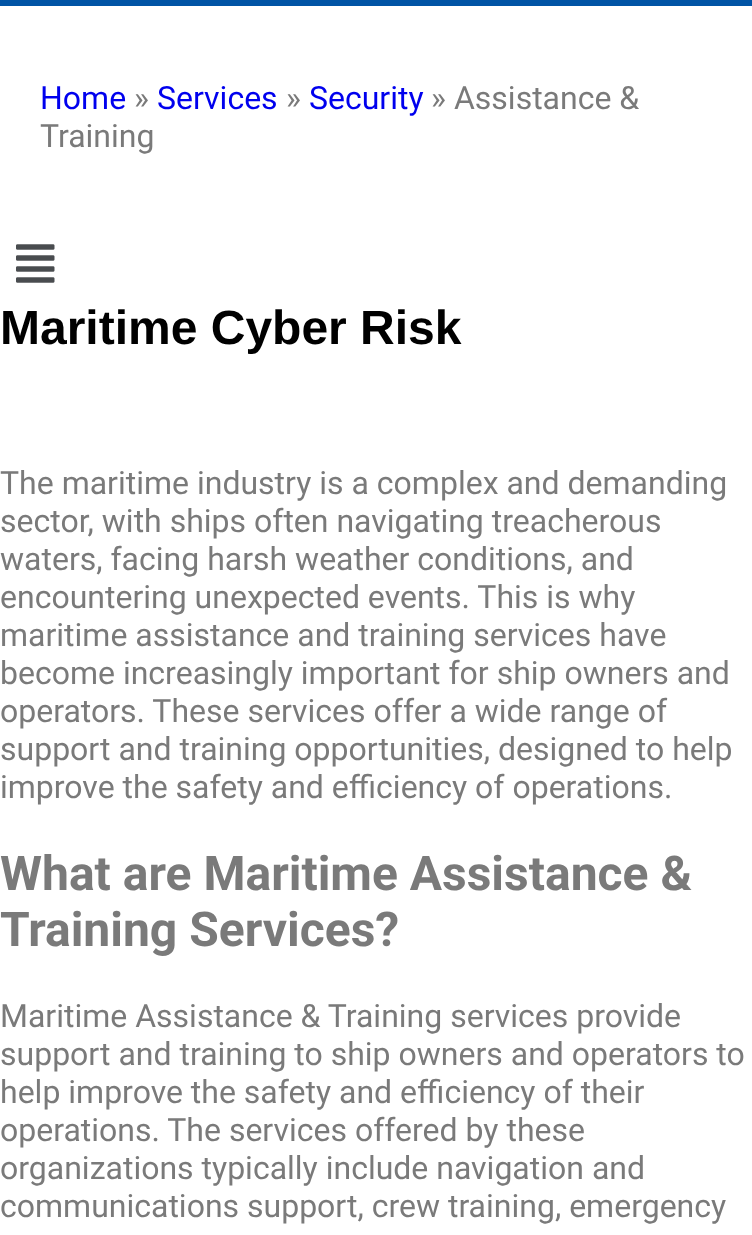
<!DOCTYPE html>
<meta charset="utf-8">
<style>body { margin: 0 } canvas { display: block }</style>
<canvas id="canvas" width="752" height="1235"></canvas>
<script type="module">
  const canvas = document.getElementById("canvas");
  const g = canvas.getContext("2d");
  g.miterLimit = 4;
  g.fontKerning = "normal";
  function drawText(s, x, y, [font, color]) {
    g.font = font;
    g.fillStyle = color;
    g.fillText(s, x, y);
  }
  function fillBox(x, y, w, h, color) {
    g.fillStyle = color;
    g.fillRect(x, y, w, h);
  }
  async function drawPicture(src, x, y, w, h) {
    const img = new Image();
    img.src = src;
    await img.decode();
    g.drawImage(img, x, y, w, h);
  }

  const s1 = ["32px Roboto", "#0000EE"];
  const s2 = ["32px Roboto", "#7A7A7A"];
  const s3 = ["bold 48px Liberation Sans", "#000000"];
  const s4 = ["bold 48px Roboto", "#7A7A7A"];

  fillBox(0, 0, 752, 1235, "#FFFFFF");
  fillBox(0, 0, 752, 6, "#0054A5");
  drawText("Home", 40, 109, s1);
  drawText("»", 134, 109, s2);
  drawText("Services", 157, 109, s1);
  drawText("»", 286, 109, s2);
  drawText("Security", 309, 109, s1);
  drawText("» Assistance &", 431, 109, s2);
  drawText("Training", 40, 147, s2);
  await drawPicture("pic1.png", 16, 244, 39, 39);
  drawText("Maritime Cyber Risk", 0, 344, s3);
  drawText("The maritime industry is a complex and demanding", 0, 494, s2);
  drawText("sector, with ships often navigating treacherous", 0, 532, s2);
  drawText("waters, facing harsh weather conditions, and", 0, 570, s2);
  drawText("encountering unexpected events. This is why", 0, 608, s2);
  drawText("maritime assistance and training services have", 0, 646, s2);
  drawText("become increasingly important for ship owners and", 0, 684, s2);
  drawText("operators. These services offer a wide range of", 0, 722, s2);
  drawText("support and training opportunities, designed to help", 0, 760, s2);
  drawText("improve the safety and efficiency of operations.", 0, 798, s2);
  drawText("What are Maritime Assistance &", 0, 890, s4);
  drawText("Training Services?", 0, 946, s4);
  drawText("Maritime Assistance & Training services provide", 0, 1027, s2);
  drawText("support and training to ship owners and operators to", 0, 1065, s2);
  drawText("help improve the safety and efficiency of their", 0, 1103, s2);
  drawText("operations. The services offered by these", 0, 1141, s2);
  drawText("organizations typically include navigation and", 0, 1179, s2);
  drawText("communications support, crew training, emergency", 0, 1217, s2);
</script>
